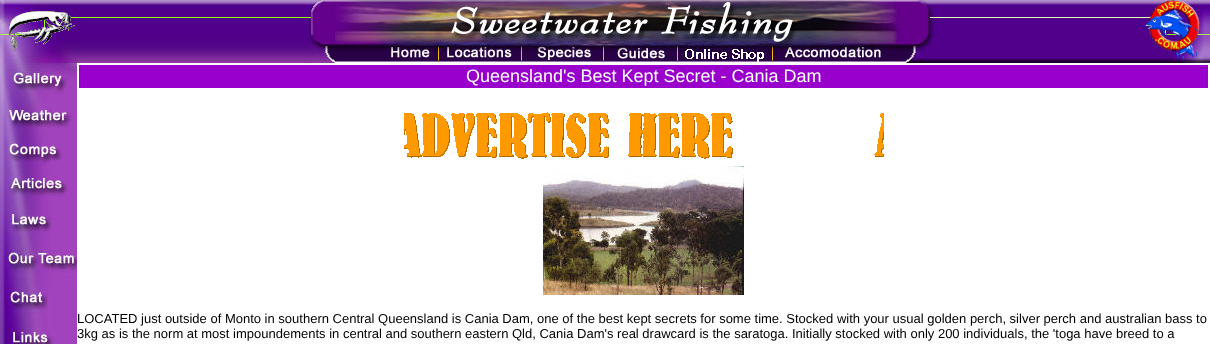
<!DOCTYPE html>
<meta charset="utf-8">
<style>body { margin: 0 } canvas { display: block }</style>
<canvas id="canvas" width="1210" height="344"></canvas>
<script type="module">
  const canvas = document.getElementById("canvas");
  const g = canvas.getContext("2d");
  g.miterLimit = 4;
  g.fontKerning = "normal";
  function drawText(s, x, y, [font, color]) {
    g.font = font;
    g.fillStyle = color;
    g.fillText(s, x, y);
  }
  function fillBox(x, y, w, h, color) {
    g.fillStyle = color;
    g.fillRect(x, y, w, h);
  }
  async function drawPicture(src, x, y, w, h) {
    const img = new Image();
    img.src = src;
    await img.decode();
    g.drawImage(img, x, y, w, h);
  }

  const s1 = ["18px Liberation Sans", "#FFFFFF"];
  const s2 = ["13px Liberation Sans", "#000000"];

  fillBox(0, 0, 1210, 344, "#FFFFFF");
  await drawPicture("pic1.png", 0, 0, 77, 63);
  await drawPicture("pic2.png", 77, 0, 230, 63);
  await drawPicture("pic3.png", 307, 0, 80, 63);
  await drawPicture("pic4.png", 387, 0, 48, 45);
  await drawPicture("pic5.png", 435, 0, 7, 63);
  await drawPicture("pic6.png", 442, 0, 75, 45);
  await drawPicture("pic7.png", 517, 0, 17, 63);
  await drawPicture("pic8.png", 534, 0, 64, 45);
  await drawPicture("pic9.png", 598, 0, 10, 63);
  await drawPicture("pic10.png", 608, 0, 64, 45);
  await drawPicture("pic11.png", 672, 0, 11, 63);
  await drawPicture("pic12.png", 683, 0, 84, 45);
  await drawPicture("pic13.png", 767, 0, 12, 63);
  await drawPicture("pic14.png", 779, 0, 108, 45);
  await drawPicture("pic15.png", 887, 0, 54, 63);
  await drawPicture("pic16.png", 387, 45, 48, 17);
  await drawPicture("pic17.png", 442, 45, 75, 17);
  await drawPicture("pic18.png", 534, 45, 64, 17);
  await drawPicture("pic19.png", 608, 45, 64, 17);
  await drawPicture("pic20.png", 683, 45, 84, 18);
  await drawPicture("pic21.png", 779, 45, 108, 17);
  await drawPicture("pic22.png", 941, 0, 266, 63);
  await drawPicture("pic23.png", 1144, 0, 60, 63);
  await drawPicture("pic24.png", 1204, 6, 3, 57);
  await drawPicture("pic25.png", 1207, 0, 3, 63);
  await drawPicture("pic26.png", 0, 88, 77, 256);
  await drawPicture("pic27.png", 0, 63, 77, 7);
  await drawPicture("pic28.png", 0, 70, 77, 18);
  await drawPicture("pic29.png", 0, 88, 64, 20);
  await drawPicture("pic30.png", 0, 108, 72, 16);
  await drawPicture("pic31.png", 0, 124, 70, 18);
  await drawPicture("pic32.png", 0, 142, 64, 18);
  await drawPicture("pic33.png", 0, 160, 58, 15);
  await drawPicture("pic34.png", 0, 175, 72, 18);
  await drawPicture("pic35.png", 0, 193, 66, 19);
  await drawPicture("pic36.png", 0, 212, 52, 17);
  await drawPicture("pic37.png", 0, 229, 51, 21);
  await drawPicture("pic38.png", 0, 250, 77, 21);
  await drawPicture("pic39.png", 0, 271, 69, 19);
  await drawPicture("pic40.png", 0, 290, 48, 17);
  await drawPicture("pic41.png", 1, 307, 47, 22);
  await drawPicture("pic42.png", 3, 329, 51, 15);
  fillBox(79, 65, 1129, 23, "#9900CC");
  drawText("Queensland's Best Kept Secret - Cania Dam", 466, 82, s1);
  await drawPicture("pic43.png", 404, 112, 480, 47);
  await drawPicture("pic44.png", 543, 166, 201, 129);
  drawText("LOCATED just outside of Monto in southern Central Queensland is Cania Dam, one of the best kept secrets for some time. Stocked with your usual golden perch, silver perch and australian bass to", 77, 323, s2);
  drawText("3kg as is the norm at most impoundements in central and southern eastern Qld, Cania Dam's real drawcard is the saratoga. Initially stocked with only 200 individuals, the 'toga have breed to a", 77, 338, s2);
</script>
